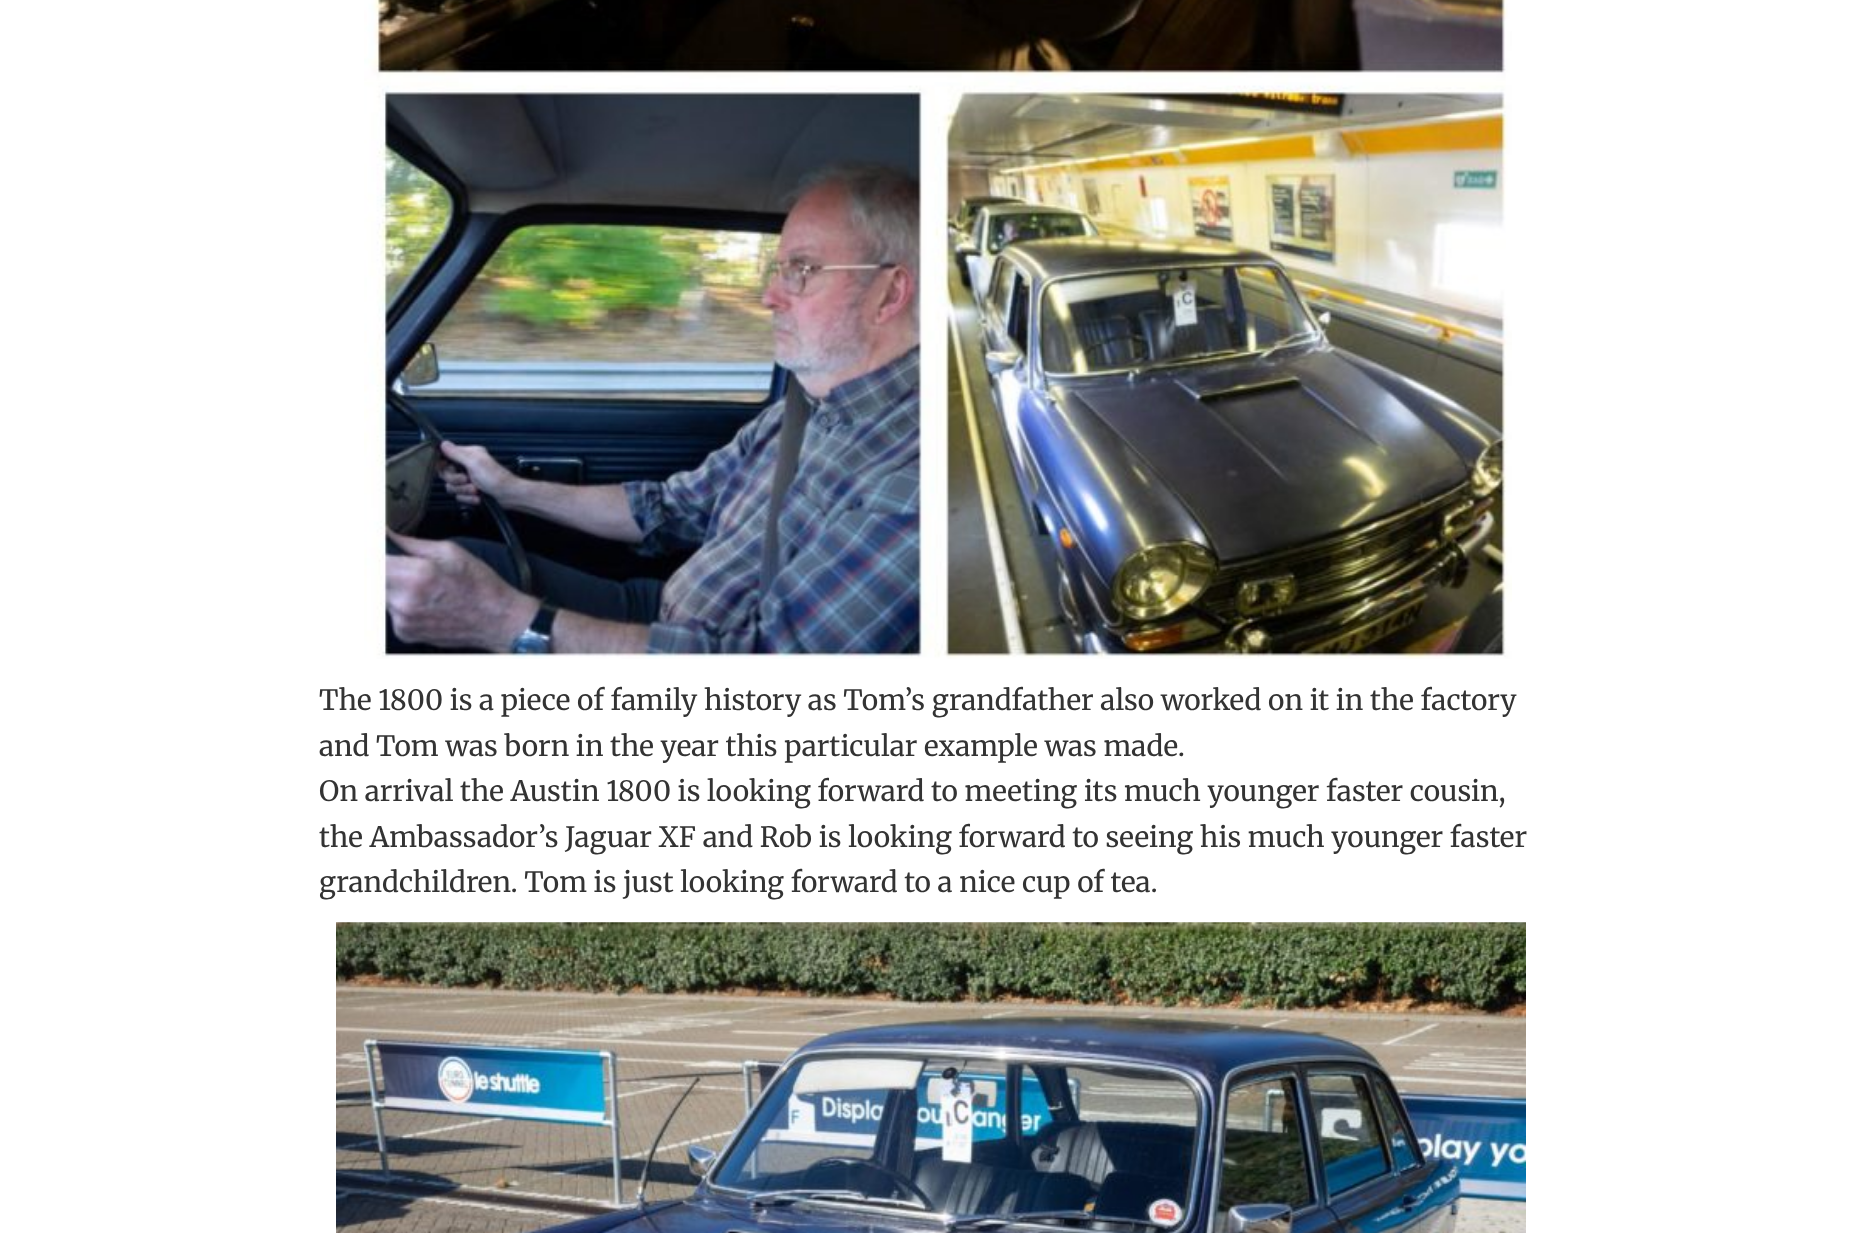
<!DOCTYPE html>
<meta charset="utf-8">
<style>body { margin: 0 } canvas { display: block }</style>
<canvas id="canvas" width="1861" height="1233"></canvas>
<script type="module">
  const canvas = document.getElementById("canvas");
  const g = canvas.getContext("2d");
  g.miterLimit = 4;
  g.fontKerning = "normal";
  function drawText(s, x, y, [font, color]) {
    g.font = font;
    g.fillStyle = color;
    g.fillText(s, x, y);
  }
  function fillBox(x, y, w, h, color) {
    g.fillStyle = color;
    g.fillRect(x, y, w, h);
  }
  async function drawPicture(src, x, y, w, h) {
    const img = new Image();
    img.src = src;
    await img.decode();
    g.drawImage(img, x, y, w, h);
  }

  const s1 = ["28px Merriweather", "#333333"];

  fillBox(0, 0, 1861, 1233, "#FFFFFF");
  await drawPicture("pic1.png", 364, 0, 1148, 659);
  drawText("The 1800 is a piece of family history as Tom’s grandfather also worked on it in the factory", 319, 710, s1);
  drawText("and Tom was born in the year this particular example was made.", 319, 756, s1);
  drawText("On arrival the Austin 1800 is looking forward to meeting its much younger faster cousin,", 319, 801, s1);
  drawText("the Ambassador’s Jaguar XF and Rob is looking forward to seeing his much younger faster", 319, 847, s1);
  drawText("grandchildren. Tom is just looking forward to a nice cup of tea.", 319, 892, s1);
  await drawPicture("pic2.png", 336, 922, 1190, 311);
</script>
